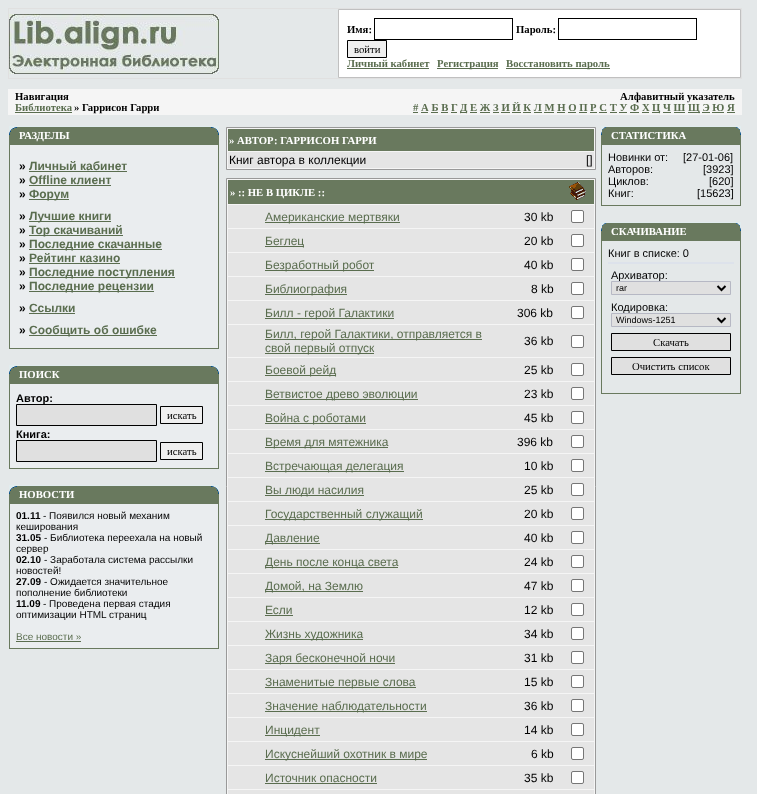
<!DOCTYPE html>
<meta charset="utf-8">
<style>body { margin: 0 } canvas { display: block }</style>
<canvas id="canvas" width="757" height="794"></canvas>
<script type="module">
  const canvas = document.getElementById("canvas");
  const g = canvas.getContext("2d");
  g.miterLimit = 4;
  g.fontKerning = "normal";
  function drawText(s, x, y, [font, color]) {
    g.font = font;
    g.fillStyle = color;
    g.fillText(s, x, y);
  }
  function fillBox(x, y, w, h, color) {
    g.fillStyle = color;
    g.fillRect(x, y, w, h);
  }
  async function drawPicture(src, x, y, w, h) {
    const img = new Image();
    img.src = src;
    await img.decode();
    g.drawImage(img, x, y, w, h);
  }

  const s1 = ["bold 10.7px Liberation Serif", "#000000"];
  const s2 = ["10.7px Liberation Serif", "#000000"];
  const s3 = ["bold 10.7px Liberation Serif", "#5A6D4F"];
  const s4 = ["bold 10.7px Liberation Serif", "#FFFFFF"];
  const s5 = ["bold 12px Liberation Sans", "#000000"];
  const s6 = ["bold 12px Liberation Sans", "#5A6D4F"];
  const s7 = ["bold 11px Liberation Sans", "#000000"];
  const s8 = ["bold 10px Liberation Sans", "#000000"];
  const s9 = ["10px Liberation Sans", "#000000"];
  const s10 = ["10px Liberation Sans", "#5A6D4F"];
  const s11 = ["12px Liberation Sans", "#000000"];
  const s12 = ["12px Liberation Sans", "#5A6D4F"];
  const s13 = ["11px Liberation Sans", "#000000"];
  const s14 = ["9px Liberation Sans", "#000000"];

  fillBox(0, 0, 757, 794, "#E4E8E9");
  g.strokeStyle = "#E0E0E0";
  g.strokeRect(8.5, 8.5, 733, 70);
  await drawPicture("pic1.png", 9, 14, 210, 60);
  g.fillStyle = "#FFFFFF";
  g.beginPath();
  g.rect(338.5, 9.5, 402, 68);
  g.fill();
  g.strokeStyle = "#C0C0C0";
  g.stroke();
  drawText("Имя:", 347, 33, s1);
  g.strokeStyle = "#000000";
  g.strokeRect(374.5, 18.5, 138, 21);
  drawText("Пароль:", 516, 33, s1);
  g.strokeRect(558.5, 18.5, 138, 21);
  g.fillStyle = "#EFEFEF";
  g.beginPath();
  g.rect(347.5, 40.5, 39, 17);
  g.fill();
  g.stroke();
  drawText("войти", 354, 53, s2);
  drawText("Личный кабинет", 347, 67, s3);
  fillBox(347, 68, 82, 1, "#5A6D4F");
  fillBox(437, 68, 61, 1, "#5A6D4F");
  drawText("Регистрация", 437, 67, s3);
  fillBox(506, 68, 104, 1, "#5A6D4F");
  drawText("Восстановить пароль", 506, 67, s3);
  fillBox(8, 89, 734, 26, "#F5F5F5");
  drawText("Навигация", 15, 100, s1);
  drawText("Библиотека", 15, 111, s3);
  fillBox(15, 112, 57, 1, "#5A6D4F");
  drawText("» Гаррисон Гарри", 74, 111, s1);
  drawText("Алфавитный указатель", 620, 100, s1);
  drawText("# А Б В Г", 413, 111, s3);
  fillBox(413, 112, 5, 1, "#5A6D4F");
  fillBox(460, 112, 7, 1, "#5A6D4F");
  drawText("Д Е Ж З И Й К Л М Н О П Р С Т У Ф Х", 460, 111, s3);
  fillBox(652, 112, 8, 1, "#5A6D4F");
  drawText("Ц Ч Ш", 652, 111, s3);
  fillBox(688, 112, 12, 1, "#5A6D4F");
  drawText("Щ Э Ю Я", 688, 111, s3);
  fillBox(421, 112, 7, 1, "#5A6D4F");
  fillBox(431, 112, 7, 1, "#5A6D4F");
  fillBox(441, 112, 7, 1, "#5A6D4F");
  fillBox(451, 112, 6, 1, "#5A6D4F");
  fillBox(470, 112, 7, 1, "#5A6D4F");
  fillBox(480, 112, 10, 1, "#5A6D4F");
  fillBox(493, 112, 6, 1, "#5A6D4F");
  fillBox(501, 112, 9, 1, "#5A6D4F");
  fillBox(512, 112, 9, 1, "#5A6D4F");
  fillBox(523, 112, 8, 1, "#5A6D4F");
  fillBox(534, 112, 8, 1, "#5A6D4F");
  fillBox(544, 112, 10, 1, "#5A6D4F");
  fillBox(557, 112, 8, 1, "#5A6D4F");
  fillBox(568, 112, 8, 1, "#5A6D4F");
  fillBox(579, 112, 8, 1, "#5A6D4F");
  fillBox(590, 112, 7, 1, "#5A6D4F");
  fillBox(599, 112, 8, 1, "#5A6D4F");
  fillBox(610, 112, 7, 1, "#5A6D4F");
  fillBox(619, 112, 8, 1, "#5A6D4F");
  fillBox(630, 112, 9, 1, "#5A6D4F");
  fillBox(642, 112, 7, 1, "#5A6D4F");
  fillBox(663, 112, 8, 1, "#5A6D4F");
  fillBox(674, 112, 11, 1, "#5A6D4F");
  fillBox(702, 112, 8, 1, "#5A6D4F");
  fillBox(712, 112, 12, 1, "#5A6D4F");
  fillBox(727, 112, 8, 1, "#5A6D4F");
  fillBox(10, 145, 208, 203, "#EAEDEF");
  fillBox(9, 127, 210, 18, "#69795E");
  await drawPicture("pic2.png", 9, 126, 210, 9);
  drawText("РАЗДЕЛЫ", 19, 139, s4);
  fillBox(218, 145, 1, 204, "#69795E");
  fillBox(9, 348, 210, 1, "#69795E");
  fillBox(9, 145, 1, 204, "#69795E");
  drawText("»", 19, 170, s5);
  drawText("Личный кабинет", 29, 170, s6);
  fillBox(29, 171, 98, 1, "#5A6D4F");
  drawText("»", 19, 184, s5);
  drawText("Offline клиент", 29, 184, s6);
  fillBox(29, 185, 82, 1, "#5A6D4F");
  drawText("»", 19, 198, s5);
  fillBox(29, 199, 40, 1, "#5A6D4F");
  drawText("Форум", 29, 198, s6);
  drawText("»", 19, 220, s5);
  fillBox(29, 221, 82, 1, "#5A6D4F");
  drawText("Лучшие книги", 29, 220, s6);
  drawText("»", 19, 234, s5);
  fillBox(29, 235, 94, 1, "#5A6D4F");
  drawText("Top скачиваний", 29, 234, s6);
  drawText("»", 19, 248, s5);
  fillBox(29, 249, 133, 1, "#5A6D4F");
  drawText("Последние скачанные", 29, 248, s6);
  drawText("»", 19, 262, s5);
  drawText("Рейтинг казино", 29, 262, s6);
  fillBox(29, 263, 91, 1, "#5A6D4F");
  drawText("»", 19, 276, s5);
  fillBox(29, 277, 146, 1, "#5A6D4F");
  drawText("Последние поступления", 29, 276, s6);
  drawText("»", 19, 290, s5);
  fillBox(29, 291, 125, 1, "#5A6D4F");
  drawText("Последние рецензии", 29, 290, s6);
  drawText("»", 19, 312, s5);
  drawText("Ссылки", 29, 312, s6);
  fillBox(29, 313, 46, 1, "#5A6D4F");
  drawText("»", 19, 334, s5);
  fillBox(29, 335, 128, 1, "#5A6D4F");
  drawText("Сообщить об ошибке", 29, 334, s6);
  fillBox(10, 384, 208, 84, "#EAEDEF");
  fillBox(9, 366, 210, 18, "#69795E");
  await drawPicture("pic2.png", 9, 365, 210, 9);
  drawText("ПОИСК", 19, 378, s4);
  fillBox(218, 384, 1, 85, "#69795E");
  fillBox(9, 468, 210, 1, "#69795E");
  fillBox(9, 384, 1, 85, "#69795E");
  drawText("Автор:", 16, 402, s7);
  g.fillStyle = "#E0E0E0";
  g.beginPath();
  g.rect(16.5, 404.5, 140, 21);
  g.fill();
  g.stroke();
  g.fillStyle = "#EFEFEF";
  g.beginPath();
  g.rect(160.5, 406.5, 42, 17);
  g.fill();
  g.stroke();
  drawText("искать", 167, 419, s2);
  drawText("Книга:", 16, 438, s7);
  g.fillStyle = "#E0E0E0";
  g.beginPath();
  g.rect(16.5, 440.5, 140, 21);
  g.fill();
  g.stroke();
  g.fillStyle = "#EFEFEF";
  g.beginPath();
  g.rect(160.5, 442.5, 42, 17);
  g.fill();
  g.stroke();
  drawText("искать", 167, 455, s2);
  fillBox(10, 504, 208, 144, "#EAEDEF");
  fillBox(9, 486, 210, 18, "#69795E");
  await drawPicture("pic2.png", 9, 485, 210, 9);
  drawText("НОВОСТИ", 19, 498, s4);
  fillBox(218, 504, 1, 145, "#69795E");
  fillBox(9, 648, 210, 1, "#69795E");
  fillBox(9, 504, 1, 145, "#69795E");
  drawText("01.11", 16, 519, s8);
  drawText("- Появился новый механим", 43, 519, s9);
  drawText("кеширования", 16, 530, s9);
  drawText("31.05", 16, 541, s8);
  drawText("- Библиотека переехала на новый", 44, 541, s9);
  drawText("сервер", 16, 552, s9);
  drawText("02.10", 16, 563, s8);
  drawText("- Заработала система рассылки", 44, 563, s9);
  drawText("новостей!", 16, 574, s9);
  drawText("27.09", 16, 585, s8);
  drawText("- Ожидается значительное", 44, 585, s9);
  drawText("пополнение библиотеки", 16, 596, s9);
  drawText("11.09", 16, 607, s8);
  drawText("- Проведена первая стадия", 43, 607, s9);
  drawText("оптимизации HTML страниц", 16, 618, s9);
  drawText("Все новости »", 16, 640, s10);
  fillBox(16, 641, 65, 1, "#5A6D4F");
  g.fillStyle = "#F5F5F5";
  g.beginPath();
  g.rect(226.5, 127.5, 369, 42);
  g.fill();
  g.strokeStyle = "#999999";
  g.stroke();
  fillBox(228, 129, 366, 22, "#69795E");
  drawText("» АВТОР: ГАРРИСОН ГАРРИ", 229, 144, s4);
  fillBox(228, 152, 366, 16, "#E5E5E5");
  drawText("Книг автора в коллекции", 229, 164, s11);
  drawText("[]", 586, 164, s11);
  g.fillStyle = "#F5F5F5";
  g.beginPath();
  g.rect(226.5, 178.5, 369, 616);
  g.fill();
  g.stroke();
  fillBox(228, 180, 366, 24, "#69795E");
  drawText("» :: НЕ В ЦИКЛЕ ::", 230, 196, s4);
  await drawPicture("pic3.png", 569, 182, 17, 18);
  fillBox(228, 205, 366, 23, "#E5E5E5");
  fillBox(265, 222, 135, 1, "#5A6D4F");
  drawText("Американские мертвяки", 265, 221, s12);
  drawText("30 kb", 524, 221, s11);
  g.fillStyle = "#FFFFFF";
  g.beginPath();
  g.roundRect(571.5, 210.5, 12, 12, 1.5);
  g.fill();
  g.strokeStyle = "#767676";
  g.stroke();
  fillBox(228, 229, 366, 23, "#E5E5E5");
  fillBox(265, 246, 39, 1, "#5A6D4F");
  drawText("Беглец", 265, 245, s12);
  drawText("20 kb", 524, 245, s11);
  g.fillStyle = "#FFFFFF";
  g.beginPath();
  g.roundRect(571.5, 234.5, 12, 12, 1.5);
  g.fill();
  g.stroke();
  fillBox(228, 253, 366, 23, "#E5E5E5");
  fillBox(265, 270, 109, 1, "#5A6D4F");
  drawText("Безработный робот", 265, 269, s12);
  drawText("40 kb", 524, 269, s11);
  g.fillStyle = "#FFFFFF";
  g.beginPath();
  g.roundRect(571.5, 258.5, 12, 12, 1.5);
  g.fill();
  g.stroke();
  fillBox(228, 277, 366, 23, "#E5E5E5");
  fillBox(265, 294, 82, 1, "#5A6D4F");
  drawText("Библиография", 265, 293, s12);
  drawText("8 kb", 531, 293, s11);
  g.fillStyle = "#FFFFFF";
  g.beginPath();
  g.roundRect(571.5, 282.5, 12, 12, 1.5);
  g.fill();
  g.stroke();
  fillBox(228, 301, 366, 23, "#E5E5E5");
  fillBox(265, 318, 129, 1, "#5A6D4F");
  drawText("Билл - герой Галактики", 265, 317, s12);
  drawText("306 kb", 517, 317, s11);
  g.fillStyle = "#FFFFFF";
  g.beginPath();
  g.roundRect(571.5, 306.5, 12, 12, 1.5);
  g.fill();
  g.stroke();
  fillBox(228, 325, 366, 32, "#E5E5E5");
  fillBox(265, 339, 217, 1, "#5A6D4F");
  drawText("Билл, герой Галактики, отправляется в", 265, 338, s12);
  fillBox(265, 353, 109, 1, "#5A6D4F");
  drawText("свой первый отпуск", 265, 352, s12);
  drawText("36 kb", 524, 345, s11);
  g.fillStyle = "#FFFFFF";
  g.beginPath();
  g.roundRect(571.5, 335.5, 12, 12, 1.5);
  g.fill();
  g.stroke();
  fillBox(228, 358, 366, 23, "#E5E5E5");
  fillBox(265, 375, 71, 1, "#5A6D4F");
  drawText("Боевой рейд", 265, 374, s12);
  drawText("25 kb", 524, 374, s11);
  g.fillStyle = "#FFFFFF";
  g.beginPath();
  g.roundRect(571.5, 363.5, 12, 12, 1.5);
  g.fill();
  g.stroke();
  fillBox(228, 382, 366, 23, "#E5E5E5");
  fillBox(265, 399, 153, 1, "#5A6D4F");
  drawText("Ветвистое древо эволюции", 265, 398, s12);
  drawText("23 kb", 524, 398, s11);
  g.fillStyle = "#FFFFFF";
  g.beginPath();
  g.roundRect(571.5, 387.5, 12, 12, 1.5);
  g.fill();
  g.stroke();
  fillBox(228, 406, 366, 23, "#E5E5E5");
  fillBox(265, 423, 101, 1, "#5A6D4F");
  drawText("Война с роботами", 265, 422, s12);
  drawText("45 kb", 524, 422, s11);
  g.fillStyle = "#FFFFFF";
  g.beginPath();
  g.roundRect(571.5, 411.5, 12, 12, 1.5);
  g.fill();
  g.stroke();
  fillBox(228, 430, 366, 23, "#E5E5E5");
  fillBox(265, 447, 123, 1, "#5A6D4F");
  drawText("Время для мятежника", 265, 446, s12);
  drawText("396 kb", 517, 446, s11);
  g.fillStyle = "#FFFFFF";
  g.beginPath();
  g.roundRect(571.5, 435.5, 12, 12, 1.5);
  g.fill();
  g.stroke();
  fillBox(228, 454, 366, 23, "#E5E5E5");
  fillBox(265, 471, 139, 1, "#5A6D4F");
  drawText("Встречающая делегация", 265, 470, s12);
  drawText("10 kb", 524, 470, s11);
  g.fillStyle = "#FFFFFF";
  g.beginPath();
  g.roundRect(571.5, 459.5, 12, 12, 1.5);
  g.fill();
  g.stroke();
  fillBox(228, 478, 366, 23, "#E5E5E5");
  fillBox(265, 495, 99, 1, "#5A6D4F");
  drawText("Вы люди насилия", 265, 494, s12);
  drawText("25 kb", 524, 494, s11);
  g.fillStyle = "#FFFFFF";
  g.beginPath();
  g.roundRect(571.5, 483.5, 12, 12, 1.5);
  g.fill();
  g.stroke();
  fillBox(228, 502, 366, 23, "#E5E5E5");
  fillBox(265, 519, 158, 1, "#5A6D4F");
  drawText("Государственный служащий", 265, 518, s12);
  drawText("20 kb", 524, 518, s11);
  g.fillStyle = "#FFFFFF";
  g.beginPath();
  g.roundRect(571.5, 507.5, 12, 12, 1.5);
  g.fill();
  g.stroke();
  fillBox(228, 526, 366, 23, "#E5E5E5");
  fillBox(265, 543, 55, 1, "#5A6D4F");
  drawText("Давление", 265, 542, s12);
  drawText("40 kb", 524, 542, s11);
  g.fillStyle = "#FFFFFF";
  g.beginPath();
  g.roundRect(571.5, 531.5, 12, 12, 1.5);
  g.fill();
  g.stroke();
  fillBox(228, 550, 366, 23, "#E5E5E5");
  fillBox(265, 567, 133, 1, "#5A6D4F");
  drawText("День после конца света", 265, 566, s12);
  drawText("24 kb", 524, 566, s11);
  g.fillStyle = "#FFFFFF";
  g.beginPath();
  g.roundRect(571.5, 555.5, 12, 12, 1.5);
  g.fill();
  g.stroke();
  fillBox(228, 574, 366, 23, "#E5E5E5");
  fillBox(265, 591, 98, 1, "#5A6D4F");
  drawText("Домой, на Землю", 265, 590, s12);
  drawText("47 kb", 524, 590, s11);
  g.fillStyle = "#FFFFFF";
  g.beginPath();
  g.roundRect(571.5, 579.5, 12, 12, 1.5);
  g.fill();
  g.stroke();
  fillBox(228, 598, 366, 23, "#E5E5E5");
  drawText("Если", 265, 614, s12);
  fillBox(265, 615, 28, 1, "#5A6D4F");
  drawText("12 kb", 524, 614, s11);
  g.fillStyle = "#FFFFFF";
  g.beginPath();
  g.roundRect(571.5, 603.5, 12, 12, 1.5);
  g.fill();
  g.stroke();
  fillBox(228, 622, 366, 23, "#E5E5E5");
  fillBox(265, 639, 98, 1, "#5A6D4F");
  drawText("Жизнь художника", 265, 638, s12);
  drawText("34 kb", 524, 638, s11);
  g.fillStyle = "#FFFFFF";
  g.beginPath();
  g.roundRect(571.5, 627.5, 12, 12, 1.5);
  g.fill();
  g.stroke();
  fillBox(228, 646, 366, 23, "#E5E5E5");
  fillBox(265, 663, 130, 1, "#5A6D4F");
  drawText("Заря бесконечной ночи", 265, 662, s12);
  drawText("31 kb", 524, 662, s11);
  g.fillStyle = "#FFFFFF";
  g.beginPath();
  g.roundRect(571.5, 651.5, 12, 12, 1.5);
  g.fill();
  g.stroke();
  fillBox(228, 670, 366, 23, "#E5E5E5");
  fillBox(265, 687, 151, 1, "#5A6D4F");
  drawText("Знаменитые первые слова", 265, 686, s12);
  drawText("15 kb", 524, 686, s11);
  g.fillStyle = "#FFFFFF";
  g.beginPath();
  g.roundRect(571.5, 675.5, 12, 12, 1.5);
  g.fill();
  g.stroke();
  fillBox(228, 694, 366, 23, "#E5E5E5");
  fillBox(265, 711, 162, 1, "#5A6D4F");
  drawText("Значение наблюдательности", 265, 710, s12);
  drawText("36 kb", 524, 710, s11);
  g.fillStyle = "#FFFFFF";
  g.beginPath();
  g.roundRect(571.5, 699.5, 12, 12, 1.5);
  g.fill();
  g.stroke();
  fillBox(228, 718, 366, 23, "#E5E5E5");
  fillBox(265, 735, 55, 1, "#5A6D4F");
  drawText("Инцидент", 265, 734, s12);
  drawText("14 kb", 524, 734, s11);
  g.fillStyle = "#FFFFFF";
  g.beginPath();
  g.roundRect(571.5, 723.5, 12, 12, 1.5);
  g.fill();
  g.stroke();
  fillBox(228, 742, 366, 23, "#E5E5E5");
  fillBox(265, 759, 162, 1, "#5A6D4F");
  drawText("Искуснейший охотник в мире", 265, 758, s12);
  drawText("6 kb", 531, 758, s11);
  g.fillStyle = "#FFFFFF";
  g.beginPath();
  g.roundRect(571.5, 747.5, 12, 12, 1.5);
  g.fill();
  g.stroke();
  fillBox(228, 766, 366, 23, "#E5E5E5");
  drawText("Источник опасности", 265, 782, s12);
  fillBox(265, 783, 112, 1, "#5A6D4F");
  drawText("35 kb", 524, 782, s11);
  g.fillStyle = "#FFFFFF";
  g.beginPath();
  g.roundRect(571.5, 771.5, 12, 12, 1.5);
  g.fill();
  g.stroke();
  fillBox(228, 790, 366, 4, "#E5E5E5");
  fillBox(601, 127, 140, 18, "#69795E");
  await drawPicture("pic4.png", 601, 126, 140, 9);
  drawText("СТАТИСТИКА", 611, 139, s4);
  fillBox(740, 145, 1, 61, "#69795E");
  fillBox(601, 205, 140, 1, "#69795E");
  fillBox(601, 145, 1, 61, "#69795E");
  drawText("Новинки от:", 608, 161, s13);
  drawText("[27-01-06]", 683, 161, s13);
  drawText("Авторов:", 608, 173, s13);
  drawText("[3923]", 703, 173, s13);
  drawText("Циклов:", 608, 185, s13);
  drawText("[620]", 709, 185, s13);
  drawText("Книг:", 608, 197, s13);
  drawText("[15623]", 697, 197, s13);
  fillBox(601, 223, 140, 18, "#69795E");
  await drawPicture("pic4.png", 601, 222, 140, 9);
  drawText("СКАЧИВАНИЕ", 611, 235, s4);
  fillBox(740, 241, 1, 153, "#69795E");
  fillBox(601, 393, 140, 1, "#69795E");
  fillBox(601, 241, 1, 153, "#69795E");
  drawText("Книг в списке: 0", 608, 257, s13);
  fillBox(608, 262, 126, 2, "#DDE2EB");
  drawText("Архиватор:", 611, 279, s13);
  g.fillStyle = "#E0E0E0";
  g.beginPath();
  g.rect(611.5, 281.5, 119, 13);
  g.fill();
  g.strokeStyle = "#B6B8C4";
  g.stroke();
  g.beginPath();
  g.moveTo(717.5, 286);
  g.lineTo(721.5, 290);
  g.lineTo(725.5, 286);
  g.strokeStyle = "#000000";
  g.lineWidth = 2;
  g.stroke();
  drawText("rar", 616, 291, s14);
  drawText("Кодировка:", 611, 311, s13);
  g.fillStyle = "#E0E0E0";
  g.beginPath();
  g.rect(611.5, 313.5, 119, 13);
  g.fill();
  g.strokeStyle = "#B6B8C4";
  g.lineWidth = 1;
  g.stroke();
  g.beginPath();
  g.moveTo(717.5, 318);
  g.lineTo(721.5, 322);
  g.lineTo(725.5, 318);
  g.strokeStyle = "#000000";
  g.lineWidth = 2;
  g.stroke();
  drawText("Windows-1251", 616, 323, s14);
  g.fillStyle = "#E0E0E0";
  g.beginPath();
  g.rect(611.5, 333.5, 119, 17);
  g.fill();
  g.lineWidth = 1;
  g.stroke();
  drawText("Скачать", 653, 346, s2);
  g.fillStyle = "#E0E0E0";
  g.beginPath();
  g.rect(611.5, 357.5, 119, 17);
  g.fill();
  g.stroke();
  drawText("Очистить список", 632, 370, s2);
</script>
